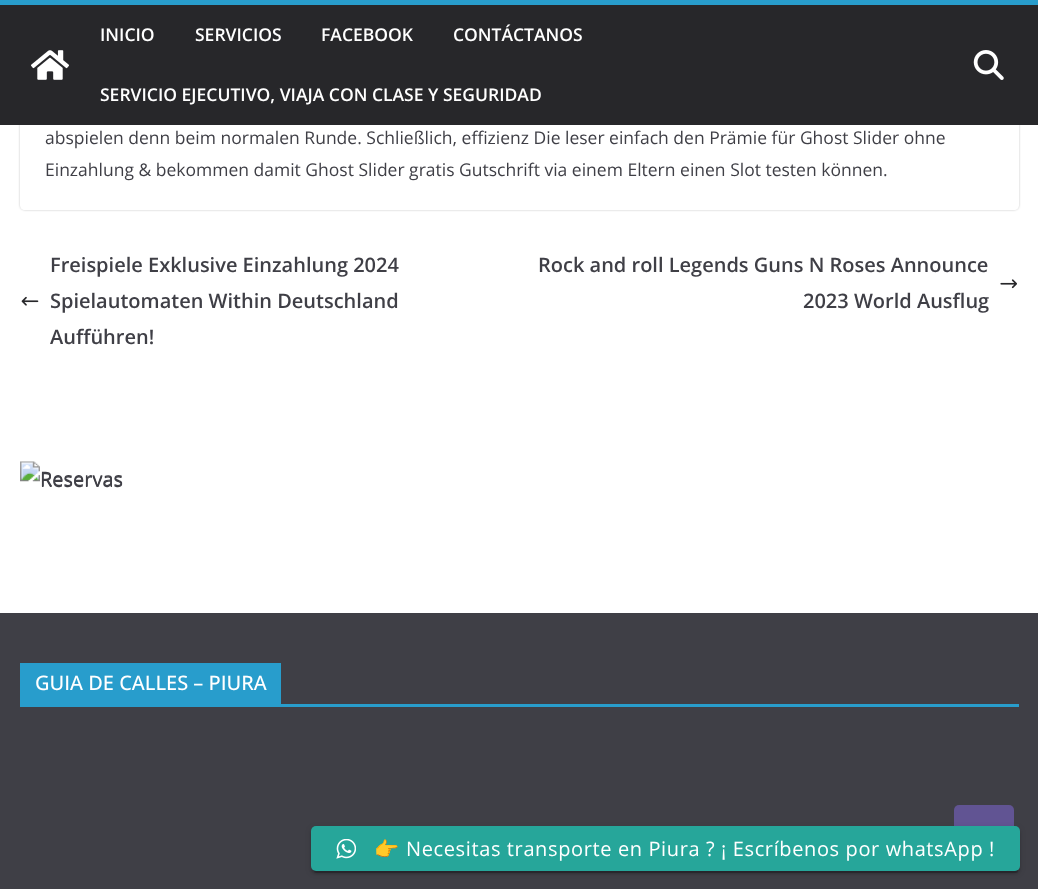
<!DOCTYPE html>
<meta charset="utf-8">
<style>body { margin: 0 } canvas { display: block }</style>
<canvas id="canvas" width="1038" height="889"></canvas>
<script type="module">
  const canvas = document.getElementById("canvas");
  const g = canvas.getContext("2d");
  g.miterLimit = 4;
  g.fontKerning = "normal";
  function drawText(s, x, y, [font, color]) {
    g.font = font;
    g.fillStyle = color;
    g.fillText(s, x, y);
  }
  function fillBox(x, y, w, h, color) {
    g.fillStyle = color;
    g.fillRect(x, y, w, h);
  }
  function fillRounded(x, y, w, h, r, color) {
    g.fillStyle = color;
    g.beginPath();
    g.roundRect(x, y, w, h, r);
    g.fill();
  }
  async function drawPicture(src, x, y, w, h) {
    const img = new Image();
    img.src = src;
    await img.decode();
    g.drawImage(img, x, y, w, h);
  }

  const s1 = ["600 17.5px Open Sans", "#FFFFFF"];
  const s2 = ["17.5px Open Sans", "#3F3F46"];
  const s3 = ["600 20px Open Sans", "#3F3F46"];
  const s4 = ["20px Open Sans", "#3F3F46"];
  const s5 = ["500 20px Open Sans", "#FFFFFF"];
  const s6 = ["20px Noto Color Emoji", "#FFFFFF"];
  const s7 = ["20px Open Sans", "#FFFFFF"];

  fillBox(0, 0, 1038, 889, "#FFFFFF");
  g.save();
  g.beginPath();
  g.moveTo(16, 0);
  g.lineTo(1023, 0);
  g.lineTo(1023, 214);
  g.lineTo(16, 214);
  g.closePath();
  g.moveTo(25, -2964);
  g.lineTo(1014, -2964);
  g.bezierCurveTo(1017, -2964, 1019, -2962, 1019, -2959);
  g.lineTo(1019, 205);
  g.bezierCurveTo(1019, 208, 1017, 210, 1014, 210);
  g.lineTo(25, 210);
  g.bezierCurveTo(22, 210, 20, 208, 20, 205);
  g.lineTo(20, -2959);
  g.bezierCurveTo(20, -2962, 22, -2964, 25, -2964);
  g.closePath();
  g.clip("evenodd");
  g.fillStyle = "rgba(0, 0, 0, 0.24)";
  g.filter = "blur(1px)";
  g.beginPath();
  g.roundRect(20, -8, 999, 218, 5);
  g.fill();
  g.filter = "none";
  g.restore();
  fillBox(0, 5, 1038, 120, "#27272A");
  fillBox(0, 0, 1038, 5, "#289DCC");
  await drawPicture("pic1.png", 31, 50, 38, 30);
  drawText("INICIO", 100, 41, s1);
  drawText("SERVICIOS", 195, 41, s1);
  drawText("FACEBOOK", 321, 41, s1);
  drawText("CONTÁCTANOS", 453, 41, s1);
  drawText("SERVICIO EJECUTIVO, VIAJA CON CLASE Y SEGURIDAD", 100, 101, s1);
  await drawPicture("pic2.png", 973, 50, 31, 30);
  drawText("abspielen denn beim normalen Runde. Schließlich, effizienz Die leser einfach den Prämie für Ghost Slider ohne", 45, 144, s2);
  drawText("Einzahlung & bekommen damit Ghost Slider gratis Gutschrift via einem Eltern einen Slot testen können.", 45, 176, s2);
  drawText("Freispiele Exklusive Einzahlung 2024", 50, 272, s3);
  await drawPicture("pic3.png", 21, 296, 18, 10);
  drawText("Spielautomaten Within Deutschland", 50, 308, s3);
  drawText("Aufführen!", 50, 344, s3);
  drawText("Rock and roll Legends Guns N Roses Announce", 538, 272, s3);
  await drawPicture("pic4.png", 1000, 279, 17, 10);
  drawText("2023 World Ausflug", 803, 308, s3);
  await drawPicture("pic5.png", 20, 461, 103, 26);
  drawText("Reservas", 40, 487, s4);
  fillBox(0, 613, 1038, 276, "#3F3F46");
  fillBox(20, 704, 999, 3, "#289DCC");
  fillBox(20, 663, 261, 41, "#289DCC");
  drawText("GUIA DE CALLES – PIURA", 35, 690, s5);
  fillRounded(954, 805, 60, 60, 5, "#615493");
  g.fillStyle = "rgba(0, 0, 0, 0.2)";
  g.filter = "blur(0.5px)";
  g.beginPath();
  g.roundRect(314, 833, 704, 40, 2.5);
  g.fill();
  g.filter = "none";
  g.fillStyle = "rgba(0, 0, 0, 0.12)";
  g.filter = "blur(3px)";
  g.beginPath();
  g.roundRect(311, 828, 709, 45, 5);
  g.fill();
  g.filter = "none";
  g.fillStyle = "rgba(0, 0, 0, 0.14)";
  g.filter = "blur(1px)";
  g.beginPath();
  g.roundRect(311, 829, 709, 45, 5);
  g.fill();
  g.filter = "none";
  fillRounded(311, 826, 709, 45, 5, "#26A69A");
  await drawPicture("pic6.png", 336, 839, 20, 20);
  g.letterSpacing = "0.62px";
  drawText("👉", 374, 856, s6);
  drawText("Necesitas transporte en Piura ? ¡ Escríbenos por whatsApp !", 406, 856, s7);
</script>
